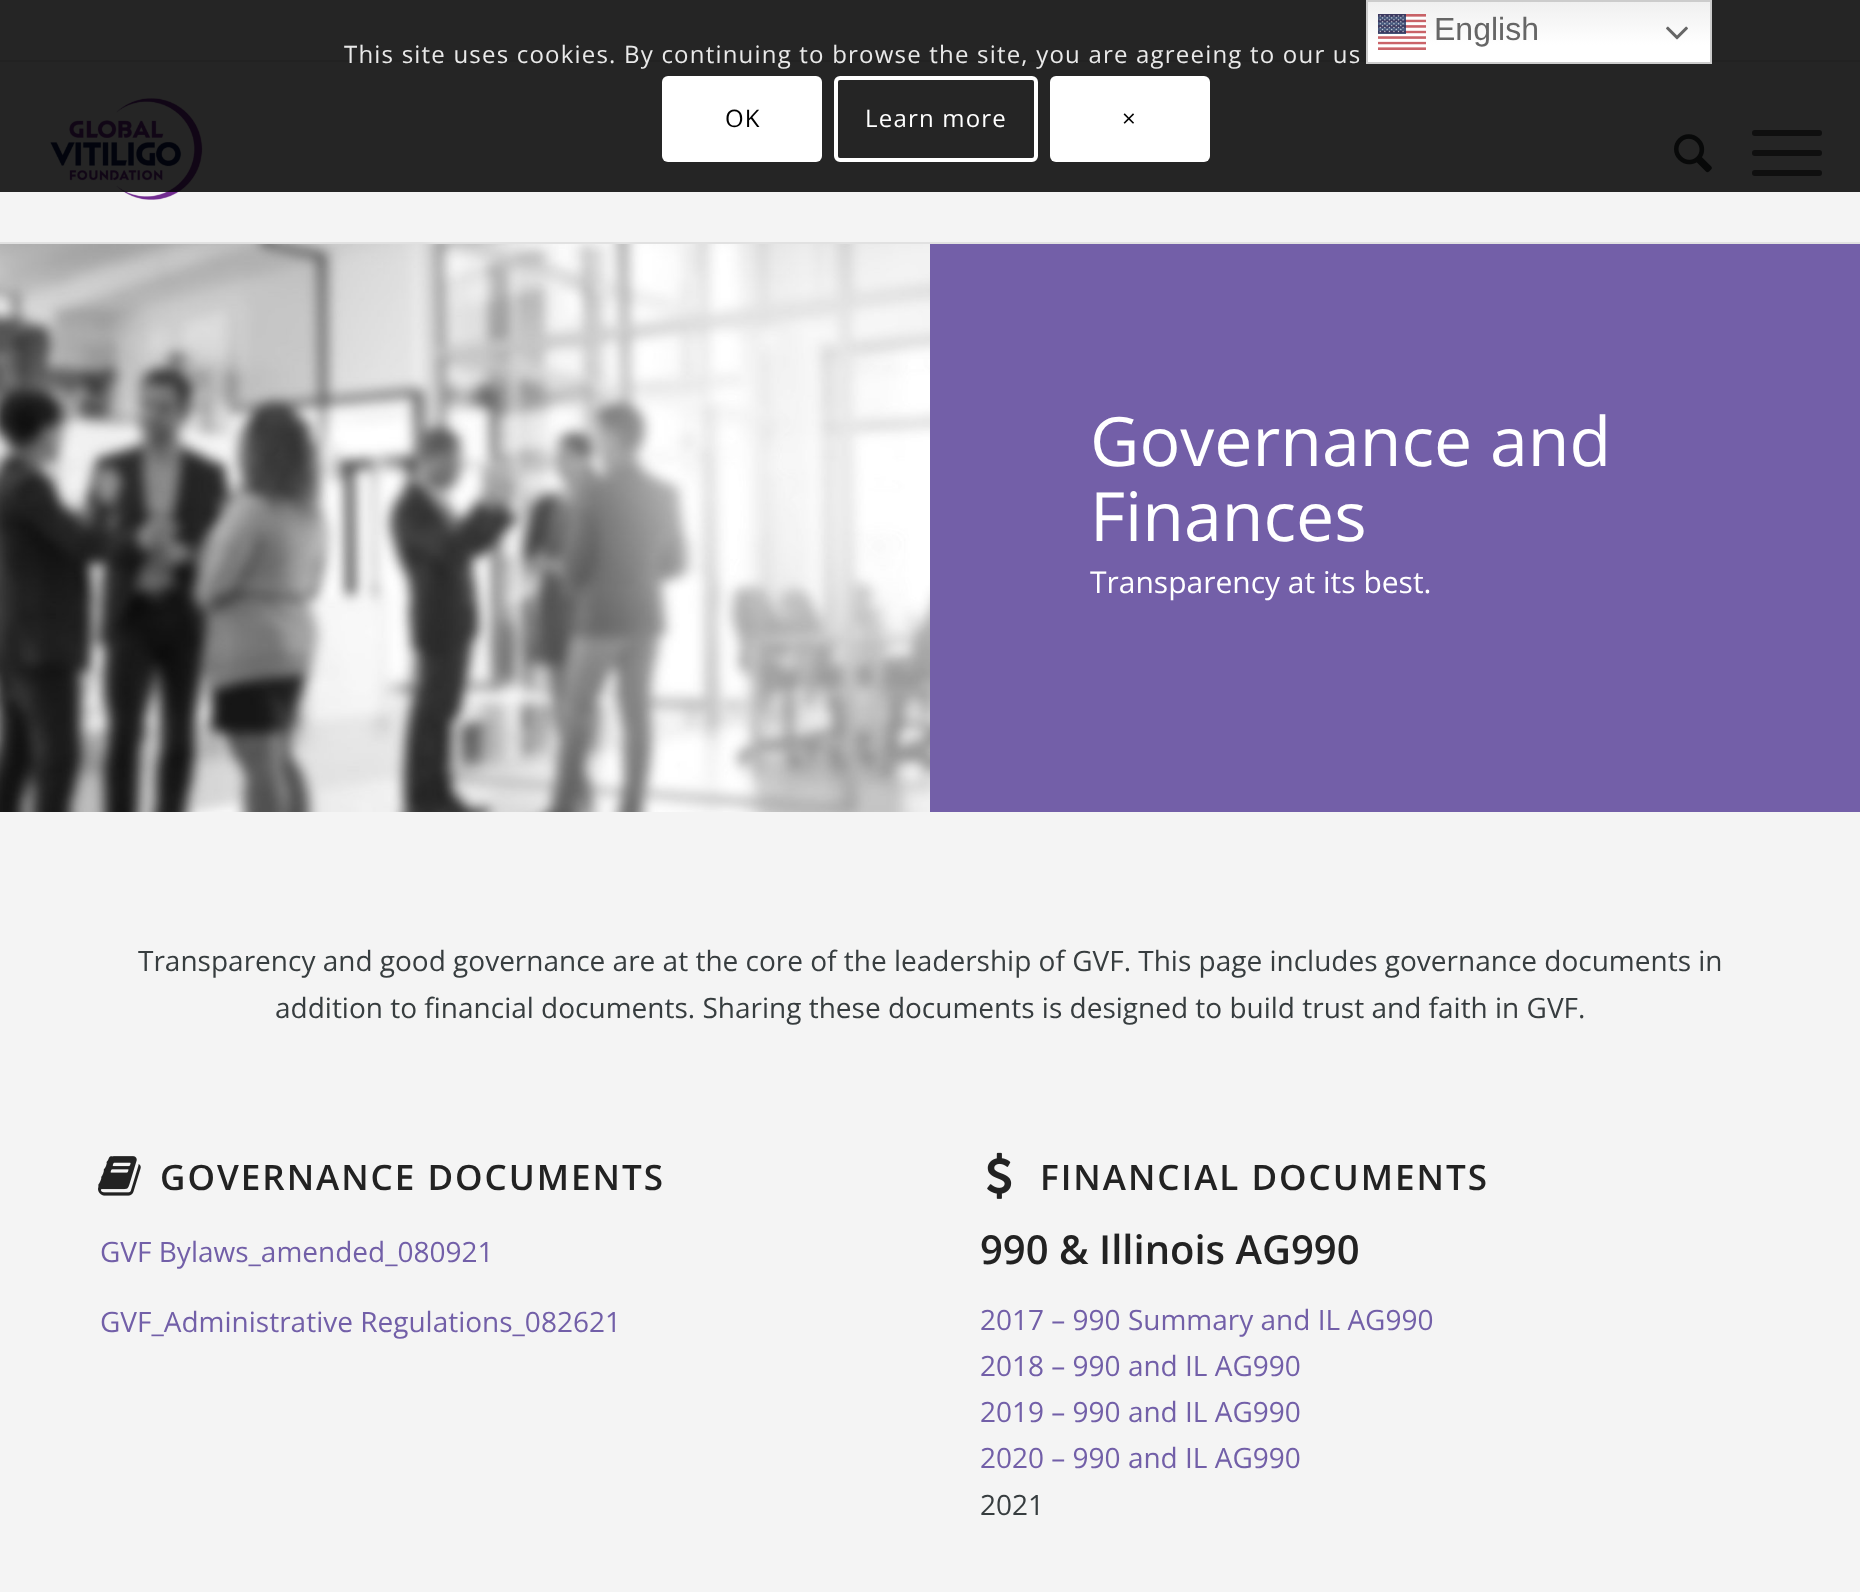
<!DOCTYPE html>
<meta charset="utf-8">
<style>body { margin: 0 } canvas { display: block }</style>
<canvas id="canvas" width="1860" height="1592"></canvas>
<script type="module">
  const canvas = document.getElementById("canvas");
  const g = canvas.getContext("2d");
  g.miterLimit = 4;
  g.fontKerning = "normal";
  function drawText(s, x, y, [font, color]) {
    g.font = font;
    g.fillStyle = color;
    g.fillText(s, x, y);
  }
  function fillBox(x, y, w, h, color) {
    g.fillStyle = color;
    g.fillRect(x, y, w, h);
  }
  function fillRounded(x, y, w, h, r, color) {
    g.fillStyle = color;
    g.beginPath();
    g.roundRect(x, y, w, h, r);
    g.fill();
  }
  async function drawPicture(src, x, y, w, h) {
    const img = new Image();
    img.src = src;
    await img.decode();
    g.drawImage(img, x, y, w, h);
  }
  let gradient;

  const s1 = ["32px Liberation Sans", "#666666"];
  const s2 = ["24px Open Sans", "#E9E9E9"];
  const s3 = ["24px Open Sans", "#000000"];
  const s4 = ["24px Open Sans", "#FFFFFF"];
  const s5 = ["68px Open Sans", "#FFFFFF"];
  const s6 = ["30px Open Sans", "#FFFFFF"];
  const s7 = ["28px Open Sans", "#373D3F"];
  const s8 = ["600 35px Open Sans", "#222222"];
  const s9 = ["28px Open Sans", "#725FA8"];
  const s10 = ["600 40px Open Sans", "#222222"];

  fillBox(0, 0, 1860, 1592, "#F4F4F4");
  fillBox(0, 0, 1860, 60, "#252525");
  fillBox(0, 60, 1860, 2, "#222222");
  gradient = g.createLinearGradient(1539, 0, 1539, 64);
  gradient.addColorStop(0, "#EFEFEF");
  gradient.addColorStop(0.7, "#FFFFFF");
  g.fillStyle = gradient;
  g.fillRect(1368, 2, 342, 60);
  fillBox(0, 62, 1860, 130, "#252525");
  g.strokeStyle = "#CCCCCC";
  g.lineWidth = 2;
  g.strokeRect(1367, 1, 344, 62);
  await drawPicture("pic1.png", 1378, 14, 48, 36);
  drawText("English", 1434, 40, s1);
  await drawPicture("pic2.png", 1666, 26, 22, 14);
  g.letterSpacing = "1.2px";
  drawText("This site uses cookies. By continuing to browse the site, you are agreeing to our us", 344, 63, s2);
  fillRounded(662, 76, 160, 86, 6, "#FFFFFF");
  drawText("OK", 725, 127, s3);
  g.beginPath();
  g.roundRect(836, 78, 200, 82, 4);
  g.strokeStyle = "#FFFFFF";
  g.lineWidth = 4;
  g.stroke();
  drawText("Learn more", 865, 127, s4);
  fillRounded(1050, 76, 160, 86, 6, "#FFFFFF");
  drawText("×", 1122, 127, s3);
  fillBox(0, 242, 1860, 2, "#E1E1E1");
  await drawPicture("pic3.png", 50, 98, 153, 102);
  await drawPicture("pic4.png", 1674, 134, 38, 39);
  fillRounded(1752, 150, 70, 6, 3, "#0F0F0F");
  fillRounded(1752, 130, 70, 6, 3, "#0F0F0F");
  fillRounded(1752, 170, 70, 6, 3, "#0F0F0F");
  await drawPicture("pic5.png", 0, 244, 930, 568);
  fillBox(930, 244, 930, 568, "#735FA8");
  g.letterSpacing = "0px";
  drawText("Governance and", 1090, 466, s5);
  drawText("Finances", 1090, 541, s5);
  drawText("Transparency at its best.", 1090, 593, s6);
  drawText("Transparency and good governance are at the core of the leadership of GVF. This page includes governance documents in", 138, 971, s7);
  drawText("addition to financial documents. Sharing these documents is designed to build trust and faith in GVF.", 275, 1018, s7);
  await drawPicture("pic6.png", 98, 1156, 43, 40);
  g.letterSpacing = "2px";
  drawText("GOVERNANCE DOCUMENTS", 160, 1190, s8);
  g.letterSpacing = "0px";
  drawText("GVF Bylaws_amended_080921", 100, 1262, s9);
  drawText("GVF_Administrative Regulations_082621", 100, 1332, s9);
  await drawPicture("pic7.png", 987, 1152, 25, 47);
  g.letterSpacing = "2px";
  drawText("FINANCIAL DOCUMENTS", 1040, 1190, s8);
  g.letterSpacing = "0px";
  drawText("990 & Illinois AG990", 980, 1264, s10);
  drawText("2017 – 990 Summary and IL AG990", 980, 1330, s9);
  drawText("2018 – 990 and IL AG990", 980, 1376, s9);
  drawText("2019 – 990 and IL AG990", 980, 1422, s9);
  drawText("2020 – 990 and IL AG990", 980, 1468, s9);
  drawText("2021", 980, 1515, s7);
</script>
